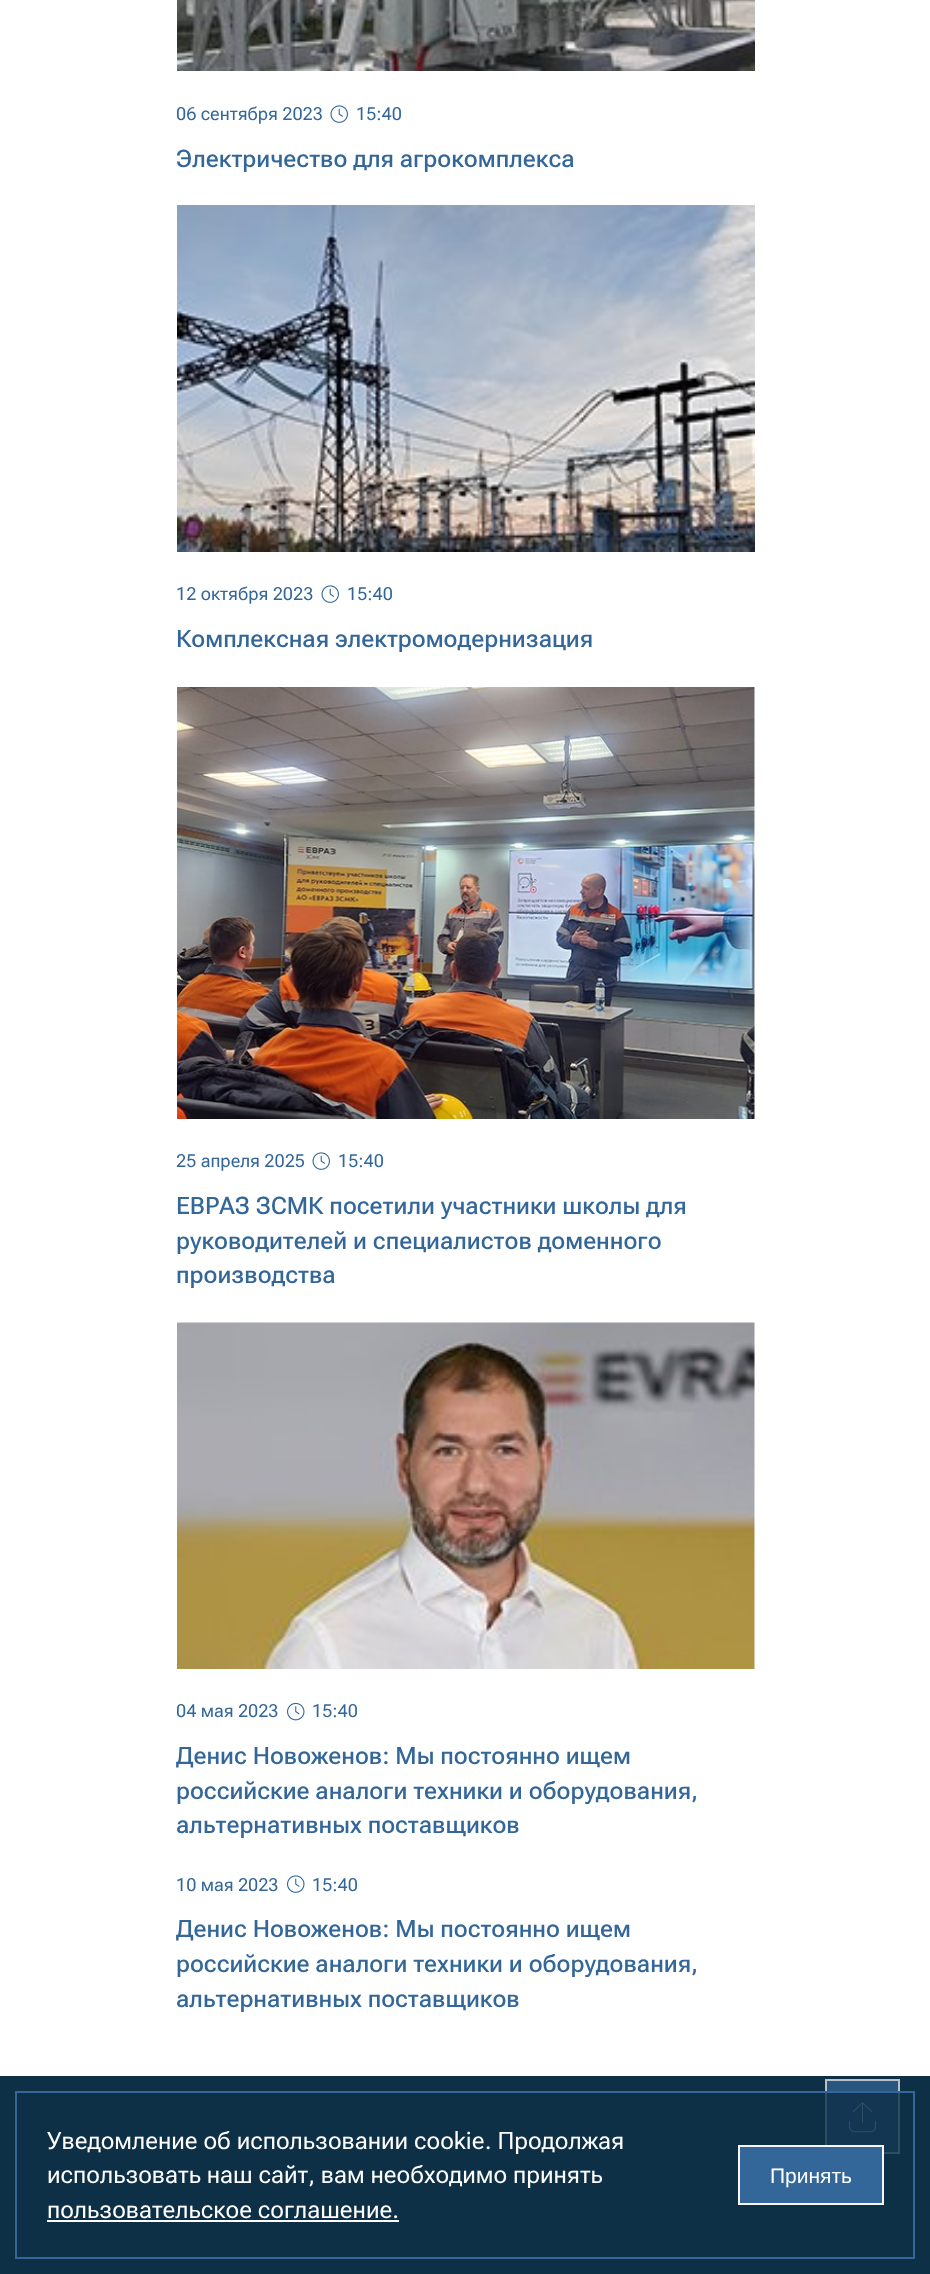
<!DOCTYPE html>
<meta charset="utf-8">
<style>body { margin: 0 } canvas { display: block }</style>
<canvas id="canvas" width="930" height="2274"></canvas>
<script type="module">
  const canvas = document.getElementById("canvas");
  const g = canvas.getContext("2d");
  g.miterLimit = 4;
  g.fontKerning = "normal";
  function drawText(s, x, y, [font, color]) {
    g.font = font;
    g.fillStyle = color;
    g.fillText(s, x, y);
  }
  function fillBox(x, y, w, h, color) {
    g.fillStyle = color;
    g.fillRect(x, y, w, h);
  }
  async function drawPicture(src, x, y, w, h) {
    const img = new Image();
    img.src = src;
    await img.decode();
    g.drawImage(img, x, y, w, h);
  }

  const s1 = ["18px Roboto Flex", "#336699"];
  const s2 = ["500 24px Roboto Flex", "#336699"];
  const s3 = ["24px Roboto Flex", "#FFFFFF"];
  const s4 = ["21px Liberation Sans", "#FFFFFF"];

  fillBox(0, 0, 930, 2274, "#FFFFFF");
  await drawPicture("pic1.png", 177, 0, 578, 71);
  drawText("06 сентября 2023", 176, 120, s1);
  await drawPicture("pic2.png", 330, 105, 18, 18);
  drawText("15:40", 356, 120, s1);
  drawText("Электричество для агрокомплекса", 176, 167, s2);
  await drawPicture("pic3.png", 177, 205, 578, 347);
  drawText("12 октября 2023", 176, 600, s1);
  await drawPicture("pic2.png", 321, 585, 18, 18);
  drawText("15:40", 347, 600, s1);
  drawText("Комплексная электромодернизация", 176, 647, s2);
  await drawPicture("pic4.png", 177, 687, 578, 432);
  drawText("25 апреля 2025", 176, 1167, s1);
  await drawPicture("pic2.png", 312, 1152, 18, 18);
  drawText("15:40", 338, 1167, s1);
  drawText("ЕВРАЗ ЗСМК посетили участники школы для", 176, 1214, s2);
  drawText("руководителей и специалистов доменного", 176, 1249, s2);
  drawText("производства", 176, 1283, s2);
  await drawPicture("pic5.png", 177, 1322, 578, 347);
  drawText("04 мая 2023", 176, 1717, s1);
  await drawPicture("pic6.png", 287, 1702, 18, 19);
  drawText("15:40", 312, 1717, s1);
  drawText("Денис Новоженов: Мы постоянно ищем", 176, 1764, s2);
  drawText("российские аналоги техники и оборудования,", 176, 1799, s2);
  drawText("альтернативных поставщиков", 176, 1833, s2);
  drawText("10 мая 2023", 176, 1891, s1);
  await drawPicture("pic7.png", 287, 1875, 18, 18);
  drawText("15:40", 312, 1891, s1);
  drawText("Денис Новоженов: Мы постоянно ищем", 176, 1937, s2);
  drawText("российские аналоги техники и оборудования,", 176, 1972, s2);
  drawText("альтернативных поставщиков", 176, 2007, s2);
  fillBox(0, 2076, 930, 198, "#0E3047");
  g.fillStyle = "#285680";
  g.beginPath();
  g.rect(826, 2080, 73, 73);
  g.fill();
  g.strokeStyle = "#B7C1C8";
  g.lineWidth = 2;
  g.stroke();
  await drawPicture("pic8.png", 849, 2102, 27, 31);
  fillBox(825, 2093, 75, 61, "rgba(14, 48, 71, 0.8)");
  g.strokeStyle = "#336699";
  g.strokeRect(16, 2092, 898, 166);
  drawText("Уведомление об использовании cookie. Продолжая", 47, 2149, s3);
  drawText("использовать наш сайт, вам необходимо принять", 47, 2183, s3);
  drawText("пользовательское соглашение.", 47, 2218, s3);
  fillBox(47, 2220, 352, 2, "#FFFFFF");
  g.fillStyle = "#336699";
  g.beginPath();
  g.rect(739, 2146, 144, 58);
  g.fill();
  g.strokeStyle = "#F6F6F6";
  g.stroke();
  drawText("Принять", 770, 2183, s4);
</script>
